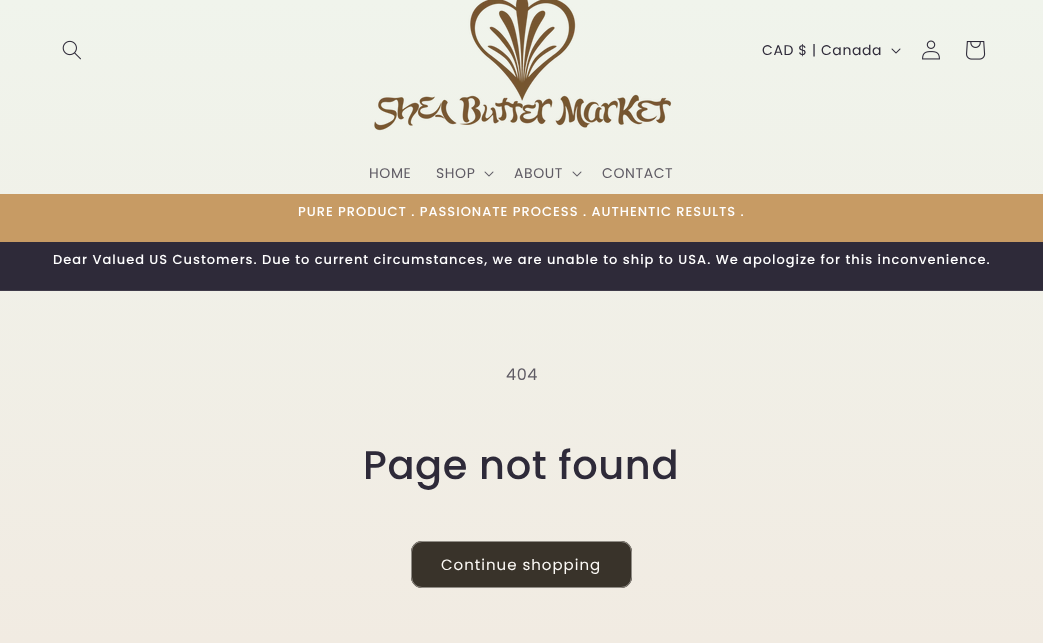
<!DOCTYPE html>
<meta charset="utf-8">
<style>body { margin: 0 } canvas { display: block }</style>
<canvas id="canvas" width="1043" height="643"></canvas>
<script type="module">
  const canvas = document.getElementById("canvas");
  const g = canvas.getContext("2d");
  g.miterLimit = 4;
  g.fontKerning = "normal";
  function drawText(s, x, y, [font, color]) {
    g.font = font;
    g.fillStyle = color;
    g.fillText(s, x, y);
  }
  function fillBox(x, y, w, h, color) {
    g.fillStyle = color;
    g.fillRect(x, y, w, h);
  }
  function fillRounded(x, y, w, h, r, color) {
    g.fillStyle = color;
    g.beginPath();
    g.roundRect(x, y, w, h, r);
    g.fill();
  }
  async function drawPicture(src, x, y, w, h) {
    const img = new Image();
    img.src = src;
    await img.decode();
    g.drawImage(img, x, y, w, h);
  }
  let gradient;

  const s1 = ["14px Poppins", "#2E2A39"];
  const s2 = ["14px Poppins", "#5F5B64"];
  const s3 = ["500 13px Poppins", "#FFFFFF"];
  const s4 = ["16px Poppins", "#5F5B64"];
  const s5 = ["500 40px Poppins", "#2E2A39"];
  const s6 = ["15px Poppins", "#FDFBF7"];

  fillBox(0, 0, 1043, 643, "#FFFFFF");
  gradient = g.createLinearGradient(522, 0, 522, 643);
  gradient.addColorStop(0, "#F0F4EC");
  gradient.addColorStop(1, "#F1EBE2");
  g.fillStyle = gradient;
  g.fillRect(0, 0, 1043, 643);
  await drawPicture("pic1.png", 62, 40, 19, 20);
  await drawPicture("pic2.png", 374, 0, 298, 131);
  g.letterSpacing = "0.6px";
  drawText("CAD $ | Canada", 762, 55, s1);
  await drawPicture("pic3.png", 891, 48, 10, 6);
  await drawPicture("pic4.png", 922, 40, 18, 20);
  await drawPicture("pic5.png", 966, 41, 20, 19);
  drawText("HOME", 369, 178, s2);
  drawText("SHOP", 436, 178, s2);
  await drawPicture("pic6.png", 484, 171, 10, 6);
  drawText("ABOUT", 514, 178, s2);
  await drawPicture("pic6.png", 572, 171, 10, 6);
  drawText("CONTACT", 602, 178, s2);
  fillBox(0, 194, 1043, 48, "#C79B64");
  g.letterSpacing = "1px";
  drawText("PURE PRODUCT . PASSIONATE PROCESS . AUTHENTIC RESULTS .", 298, 216, s3);
  fillBox(0, 242, 1043, 48, "#2E2A39");
  fillBox(0, 290, 1043, 1, "#3F3B49");
  drawText("Dear Valued US Customers. Due to current circumstances, we are unable to ship to USA. We apologize for this inconvenience.", 53, 264, s3);
  g.letterSpacing = "0.6px";
  drawText("404", 506, 380, s4);
  drawText("Page not found", 363, 479, s5);
  fillRounded(411, 541, 221, 47, 11, "#39332A");
  g.beginPath();
  g.roundRect(411.5, 541.5, 220, 46, 10.5);
  g.strokeStyle = "#39332A";
  g.stroke();
  g.beginPath();
  g.roundRect(411.5, 541.5, 220, 46, 10.5);
  g.strokeStyle = "rgba(253, 251, 247, 0.45)";
  g.stroke();
  g.letterSpacing = "1px";
  drawText("Continue shopping", 441, 570, s6);
</script>
